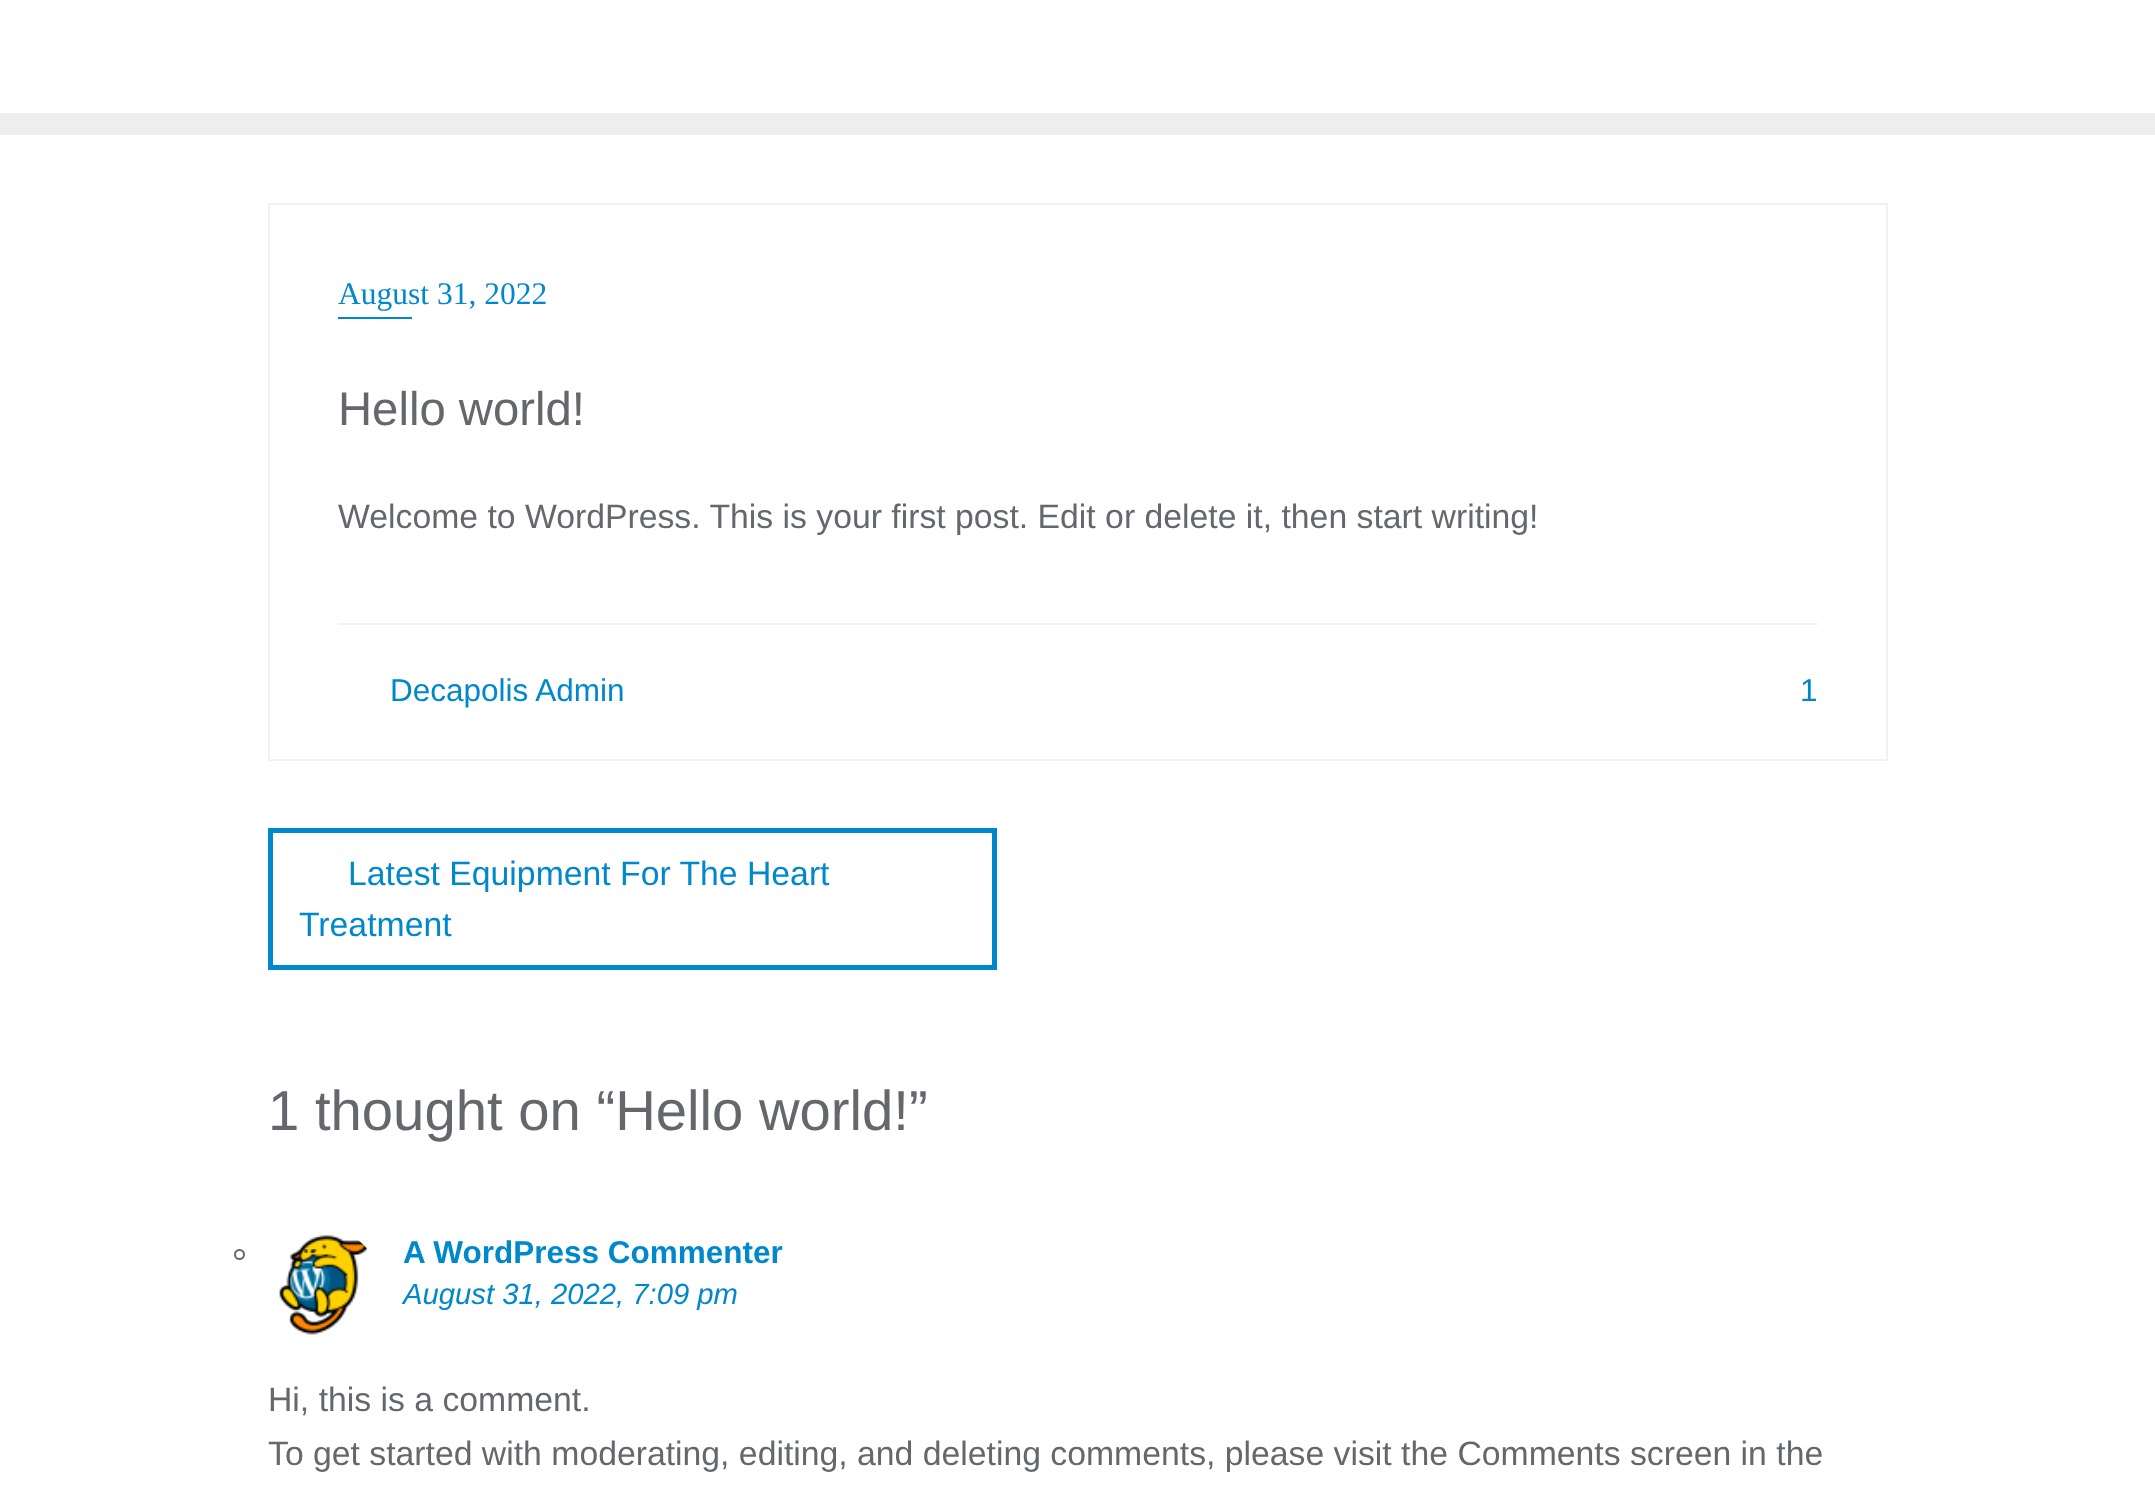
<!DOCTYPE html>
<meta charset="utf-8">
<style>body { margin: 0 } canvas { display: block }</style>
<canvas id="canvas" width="2155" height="1502"></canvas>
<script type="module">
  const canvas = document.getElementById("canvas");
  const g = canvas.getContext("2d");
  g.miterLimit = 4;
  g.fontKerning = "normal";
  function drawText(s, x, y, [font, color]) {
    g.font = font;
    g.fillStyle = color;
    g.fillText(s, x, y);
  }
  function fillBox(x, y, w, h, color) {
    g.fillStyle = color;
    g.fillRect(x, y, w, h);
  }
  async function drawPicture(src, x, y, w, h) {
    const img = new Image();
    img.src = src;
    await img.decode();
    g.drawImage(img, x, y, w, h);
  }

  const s1 = ["31.5px Liberation Serif", "#0088CC"];
  const s2 = ["47.25px Liberation Sans", "#64686D"];
  const s3 = ["33.75px Liberation Sans", "#64686D"];
  const s4 = ["31.5px Liberation Sans", "#0088CC"];
  const s5 = ["33.75px Liberation Sans", "#0088CC"];
  const s6 = ["56.25px Liberation Sans", "#64686D"];
  const s7 = ["bold 31.5px Liberation Sans", "#0088CC"];
  const s8 = ["italic 29.25px Liberation Sans", "#0088CC"];

  fillBox(0, 0, 2155, 1502, "#FFFFFF");
  fillBox(0, 113, 2155, 22, "#EEEEEE");
  g.strokeStyle = "#F1F1F1";
  g.lineWidth = 2;
  g.strokeRect(269, 204, 1618, 556);
  drawText("August 31, 2022", 338, 304, s1);
  fillBox(338, 317, 74, 2, "#0088CC");
  drawText("Hello world!", 338, 425, s2);
  drawText("Welcome to WordPress. This is your first post. Edit or delete it, then start writing!", 338, 528, s3);
  fillBox(338, 623, 1480, 2, "#F1F1F1");
  drawText("Decapolis Admin", 390, 701, s4);
  drawText("1", 1800, 701, s4);
  g.strokeStyle = "#0088CC";
  g.lineWidth = 5;
  g.strokeRect(270.5, 830.5, 724, 137);
  drawText("Latest Equipment For The Heart", 348, 885, s5);
  drawText("Treatment", 299, 936, s5);
  drawText("1 thought on “Hello world!”", 268, 1130, s6);
  g.beginPath();
  g.arc(239.5, 1254.5, 4.5, 0, Math.PI * 2);
  g.strokeStyle = "#64686D";
  g.lineWidth = 2;
  g.stroke();
  await drawPicture("pic1.png", 279, 1235, 89, 100);
  drawText("A WordPress Commenter", 403, 1263, s7);
  drawText("August 31, 2022, 7:09 pm", 403, 1304, s8);
  drawText("Hi, this is a comment.", 268, 1411, s3);
  drawText("To get started with moderating, editing, and deleting comments, please visit the Comments screen in the", 268, 1465, s3);
</script>
